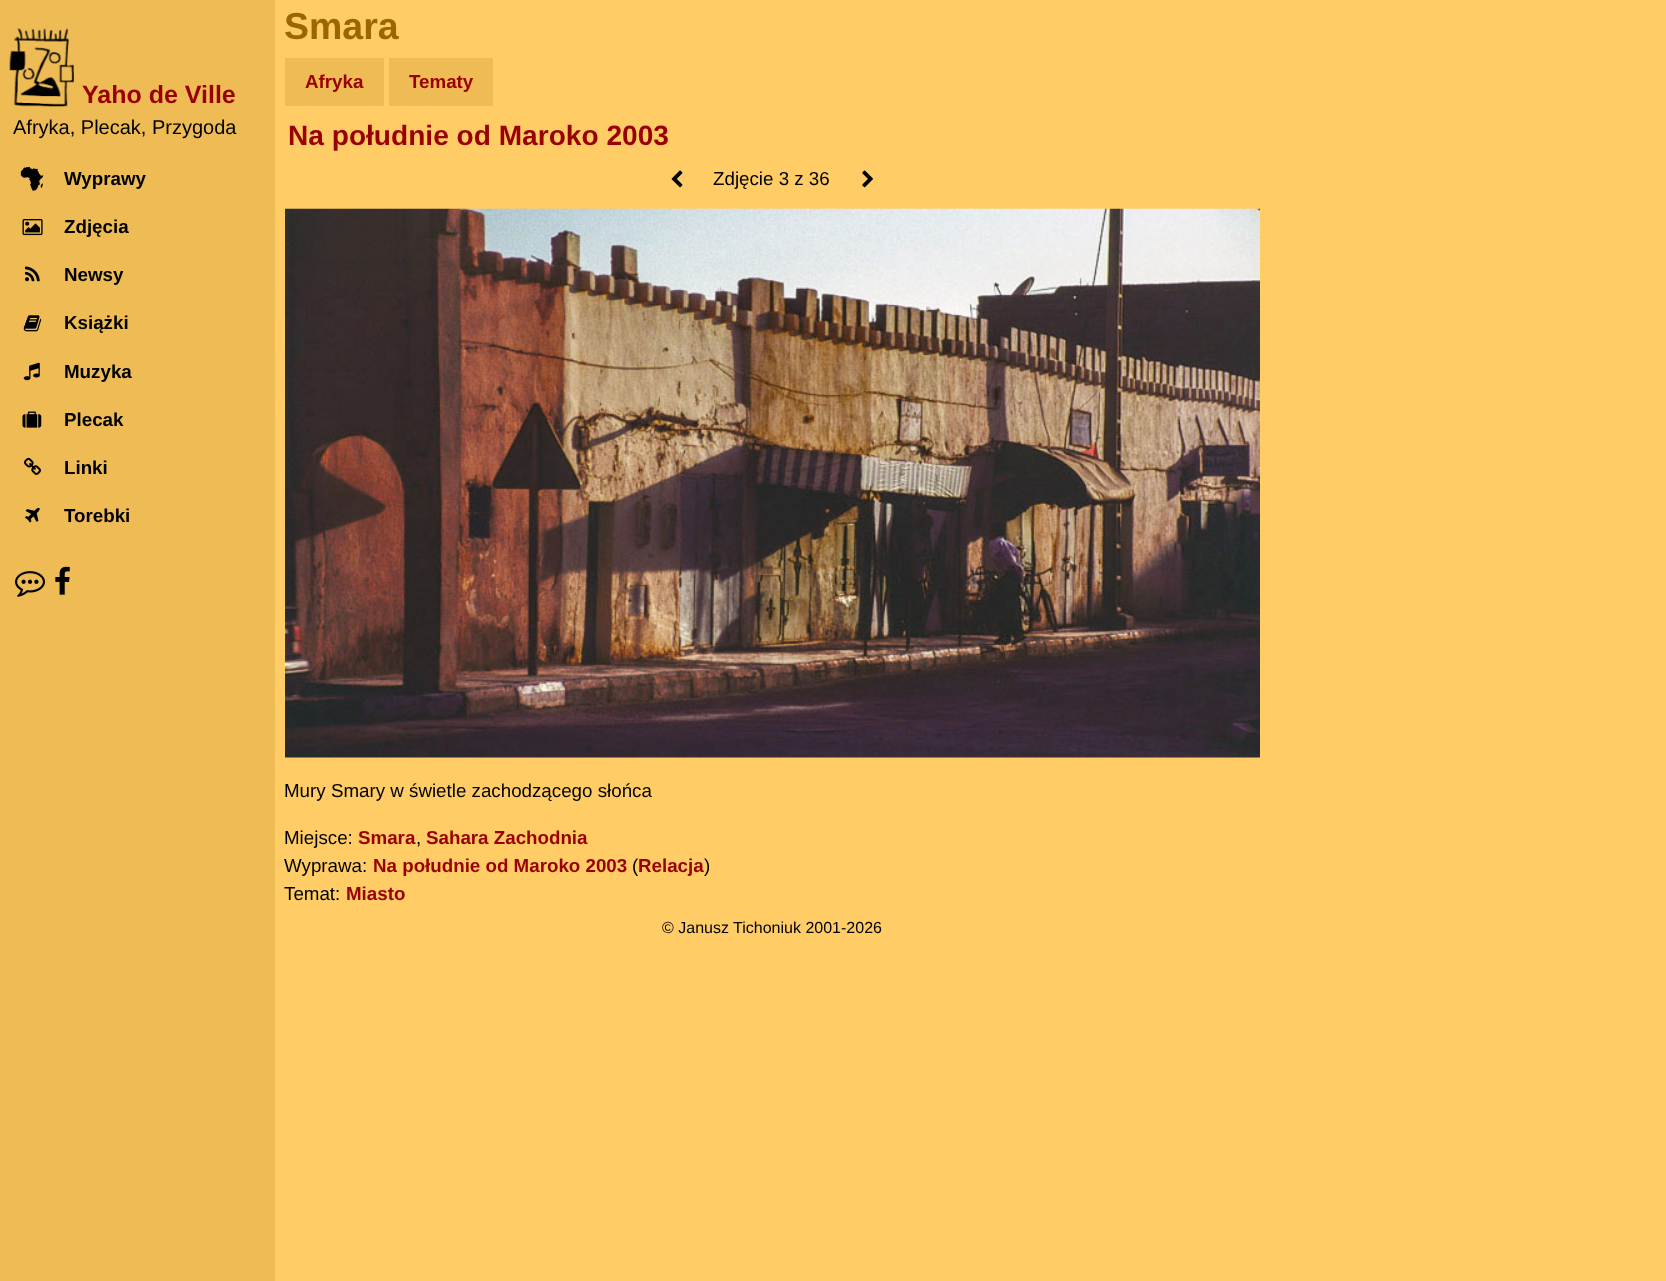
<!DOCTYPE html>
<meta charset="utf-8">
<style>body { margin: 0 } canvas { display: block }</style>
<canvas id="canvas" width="1666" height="1281"></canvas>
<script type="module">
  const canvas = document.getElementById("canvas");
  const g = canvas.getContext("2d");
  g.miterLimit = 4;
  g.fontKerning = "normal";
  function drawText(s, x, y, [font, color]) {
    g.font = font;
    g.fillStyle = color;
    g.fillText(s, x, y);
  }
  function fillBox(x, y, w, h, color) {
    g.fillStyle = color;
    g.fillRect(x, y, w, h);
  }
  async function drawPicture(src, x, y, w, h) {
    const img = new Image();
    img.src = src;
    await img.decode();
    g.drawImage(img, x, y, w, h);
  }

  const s1 = ["bold 25px Liberation Sans", "#990000"];
  const s2 = ["20px Liberation Sans", "#000000"];
  const s3 = ["bold 18.75px Liberation Sans", "#000000"];
  const s4 = ["bold 37.5px Liberation Sans", "#996600"];
  const s5 = ["bold 18.75px Liberation Sans", "#990000"];
  const s6 = ["bold 28.1px Liberation Sans", "#990000"];
  const s7 = ["18.75px Liberation Sans", "#000000"];
  const s8 = ["16px Liberation Sans", "#000000"];

  fillBox(0, 0, 1666, 1281, "#FFCC66");
  fillBox(0, 0, 275, 1281, "#EEBB55");
  await drawPicture("pic1.png", 9, 28, 65, 79);
  drawText("Yaho de Ville", 82, 103, s1);
  drawText("Afryka, Plecak, Przygoda", 13, 134, s2);
  await drawPicture("pic2.png", 20, 166, 24, 25);
  drawText("Wyprawy", 64, 185, s3);
  await drawPicture("pic3.png", 22, 219, 21, 17);
  drawText("Zdjęcia", 64, 233, s3);
  await drawPicture("pic4.png", 25, 266, 15, 16);
  drawText("Newsy", 64, 281, s3);
  await drawPicture("pic5.png", 23, 315, 19, 17);
  drawText("Książki", 64, 329, s3);
  await drawPicture("pic6.png", 23, 362, 17, 19);
  drawText("Muzyka", 64, 378, s3);
  await drawPicture("pic7.png", 22, 411, 20, 17);
  drawText("Plecak", 64, 426, s3);
  await drawPicture("pic8.png", 23, 457, 18, 18);
  drawText("Linki", 64, 474, s3);
  await drawPicture("pic9.png", 25, 507, 15, 16);
  drawText("Torebki", 64, 522, s3);
  await drawPicture("pic10.png", 15, 571, 30, 26);
  await drawPicture("pic11.png", 55, 566, 15, 29);
  drawText("Smara", 284, 39, s4);
  fillBox(285, 58, 99, 48, "#EEBB55");
  drawText("Afryka", 305, 88, s5);
  fillBox(389, 58, 104, 48, "#EEBB55");
  drawText("Tematy", 409, 88, s5);
  drawText("Na południe od Maroko 2003", 288, 145, s6);
  await drawPicture("pic12.png", 671, 170, 12, 18);
  drawText("Zdjęcie 3 z 36", 713, 185, s7);
  await drawPicture("pic13.png", 862, 170, 11, 18);
  await drawPicture("pic14.png", 285, 208, 975, 550);
  drawText("Mury Smary w świetle zachodzącego słońca", 284, 797, s7);
  drawText("Miejsce:", 284, 844, s7);
  drawText("Smara", 358, 844, s5);
  drawText(",", 416, 844, s7);
  drawText("Sahara Zachodnia", 426, 844, s5);
  drawText("Wyprawa:", 284, 872, s7);
  drawText("Na południe od Maroko 2003", 373, 872, s5);
  drawText("(", 632, 872, s7);
  drawText("Relacja", 638, 872, s5);
  drawText(")", 704, 872, s7);
  drawText("Temat:", 284, 900, s7);
  drawText("Miasto", 346, 900, s5);
  drawText("© Janusz Tichoniuk 2001-2026", 662, 933, s8);
</script>
